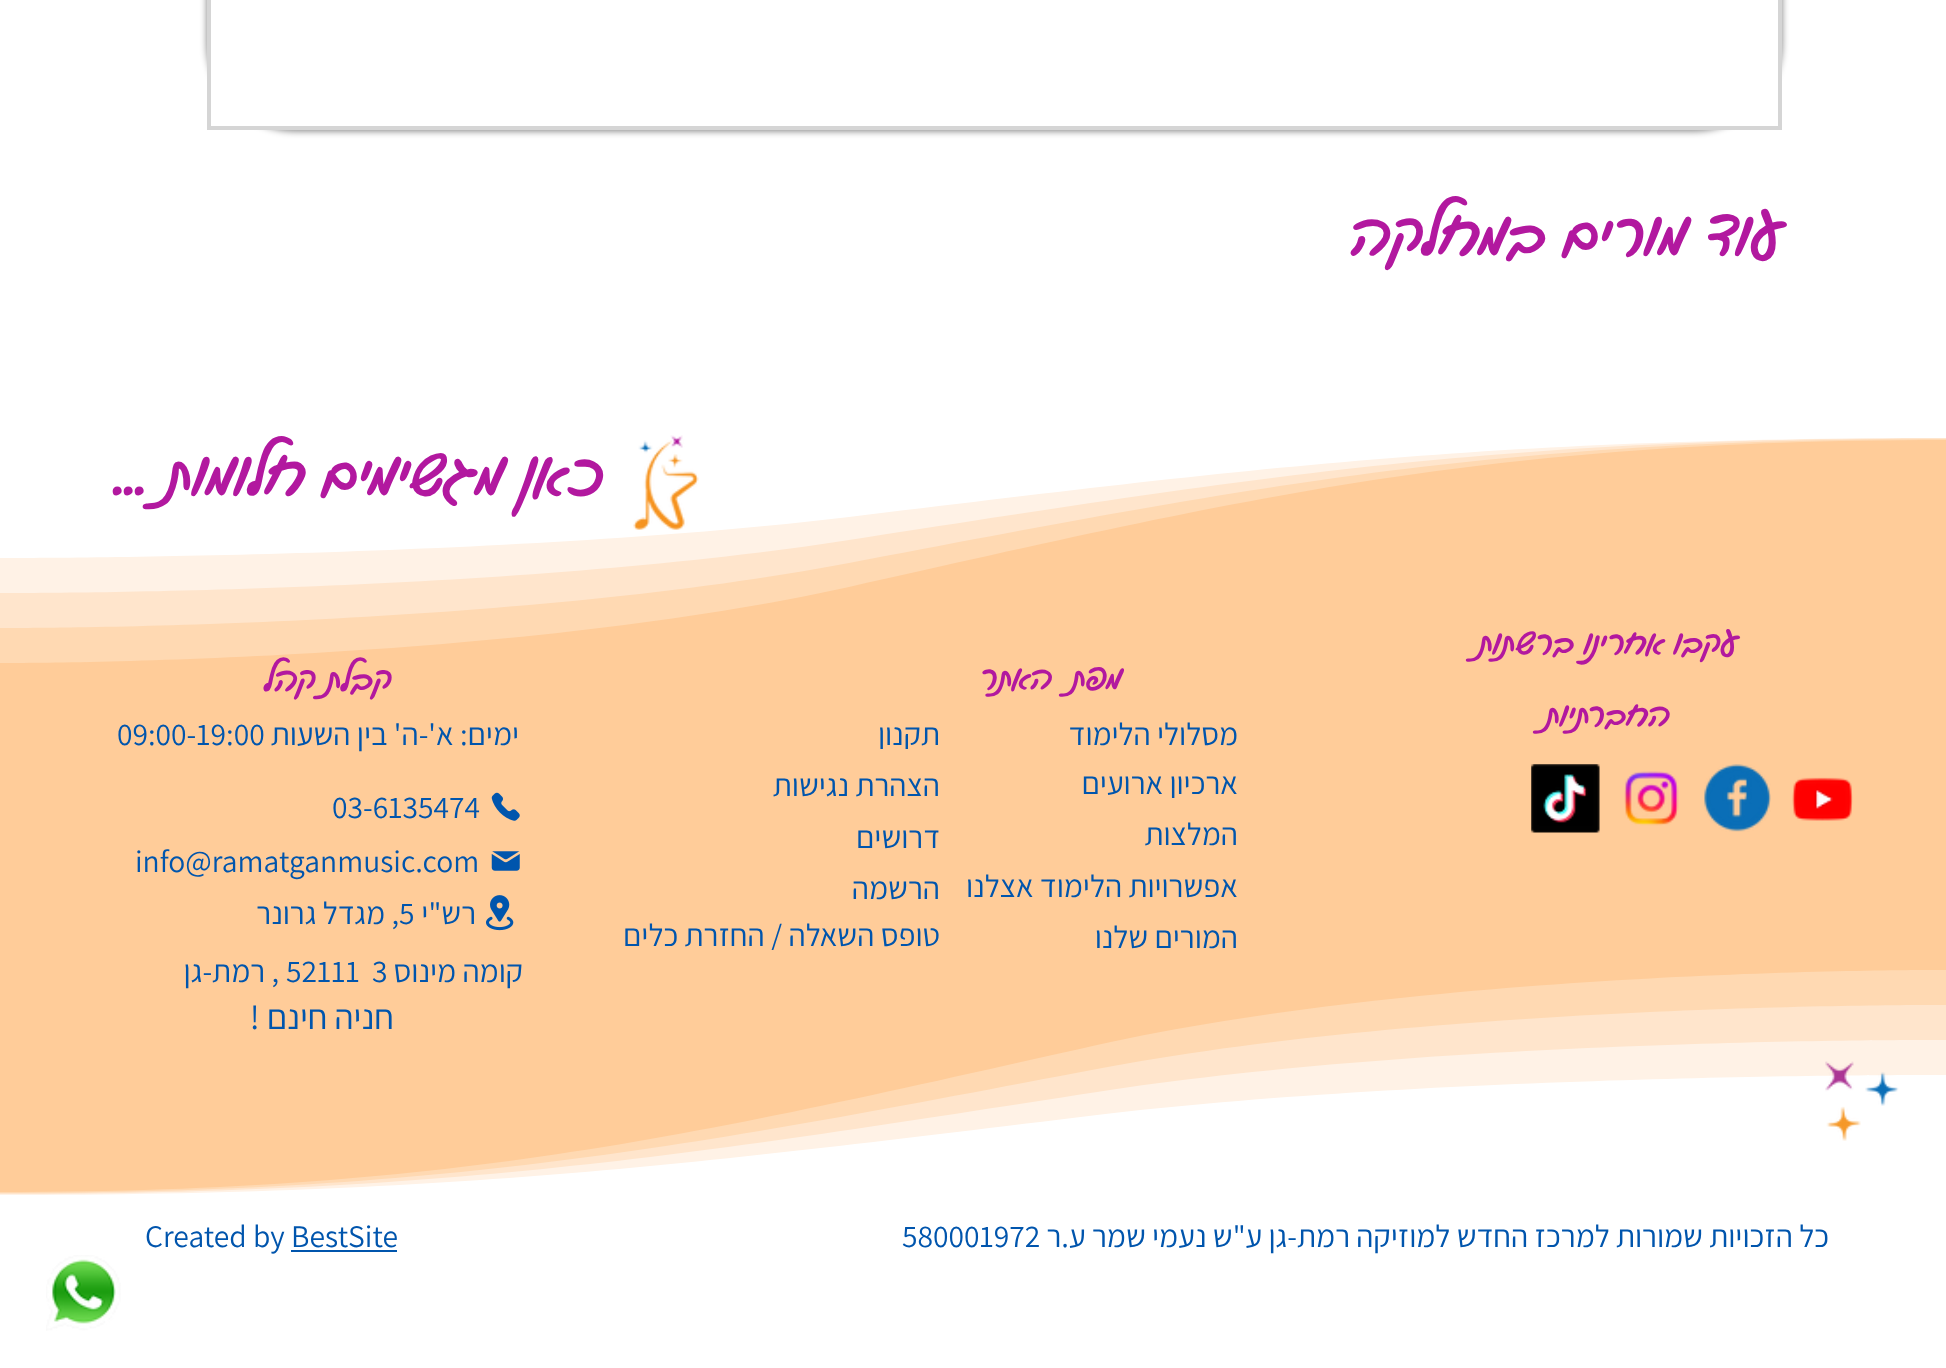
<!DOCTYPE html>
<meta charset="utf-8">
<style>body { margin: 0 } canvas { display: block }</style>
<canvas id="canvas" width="1946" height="1368"></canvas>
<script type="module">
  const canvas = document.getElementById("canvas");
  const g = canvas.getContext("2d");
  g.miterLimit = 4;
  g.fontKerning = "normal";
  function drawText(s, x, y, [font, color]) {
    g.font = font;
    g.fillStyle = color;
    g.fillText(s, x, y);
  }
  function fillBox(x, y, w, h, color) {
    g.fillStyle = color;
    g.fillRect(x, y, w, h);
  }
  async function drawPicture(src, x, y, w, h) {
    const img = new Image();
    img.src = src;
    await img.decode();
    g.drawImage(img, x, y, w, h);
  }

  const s1 = ["61.25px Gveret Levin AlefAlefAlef", "#B2189F"];
  const s2 = ["33.25px Gveret Levin AlefAlefAlef", "#B2189F"];
  const s3 = ["31.5px Assistant", "#0055AD"];
  const s4 = ["35px Gveret Levin AlefAlefAlef", "#B2189F"];
  const s5 = ["35px Assistant", "#0055AD"];

  fillBox(0, 0, 1946, 1368, "#FFFFFF");
  g.fillStyle = "rgba(0, 0, 0, 0.5)";
  g.filter = "blur(3.5px)";
  g.beginPath();
  g.roundRect(207, -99, 1575, 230, 88);
  g.fill();
  g.filter = "none";
  g.fillStyle = "#FFFFFF";
  g.beginPath();
  g.rect(209, -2, 1571, 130);
  g.fill();
  g.strokeStyle = "#D5D5D5";
  g.lineWidth = 4;
  g.stroke();
  g.direction = "rtl";
  drawText("עוד מורים במחלקה", 1783, 255, s1);
  fillBox(0, 440, 1946, 752, "#FFCC99");
  g.save();
  g.beginPath();
  g.rect(0, 436, 1946, 227);
  g.clip();
  g.fillStyle = "#FFD9B2";
  g.beginPath();
  g.moveTo(1946, 435);
  g.lineTo(1946, 440);
  g.bezierCurveTo(1485, 440, 1246, 498, 849, 587);
  g.bezierCurveTo(497, 665, 0, 663, 0, 663);
  g.lineTo(0, 435);
  g.closePath();
  g.fill();
  g.restore();
  g.save();
  g.beginPath();
  g.rect(0, 436, 1946, 192);
  g.clip();
  g.fillStyle = "#FFE5CC";
  g.beginPath();
  g.moveTo(1946, 435);
  g.lineTo(1946, 439);
  g.bezierCurveTo(1485, 439, 1246, 488, 849, 563);
  g.bezierCurveTo(497, 630, 0, 628, 0, 628);
  g.lineTo(0, 435);
  g.closePath();
  g.fill();
  g.restore();
  g.save();
  g.beginPath();
  g.rect(0, 436, 1946, 157);
  g.clip();
  g.fillStyle = "#FFF2E6";
  g.beginPath();
  g.moveTo(1946, 435);
  g.lineTo(1946, 438);
  g.bezierCurveTo(1485, 438, 1246, 479, 849, 540);
  g.bezierCurveTo(497, 595, 0, 593, 0, 593);
  g.lineTo(0, 435);
  g.closePath();
  g.fill();
  g.restore();
  g.save();
  g.beginPath();
  g.rect(0, 436, 1946, 122);
  g.clip();
  g.fillStyle = "#FFFFFF";
  g.beginPath();
  g.moveTo(1946, 435);
  g.lineTo(1946, 438);
  g.bezierCurveTo(1485, 438, 1246, 469, 849, 517);
  g.bezierCurveTo(497, 559, 0, 558, 0, 558);
  g.lineTo(0, 435);
  g.closePath();
  g.fill();
  g.restore();
  drawText("כאן מגשימים חלומות ...", 605, 495, s1);
  drawText("עקבו אחרינו ברשתות", 1738, 654, s2);
  drawText("החברתיות", 1670, 726, s2);
  await drawPicture("pic1.png", 1792, 777, 61, 44);
  await drawPicture("pic2.png", 1704, 764, 67, 68);
  await drawPicture("pic3.png", 1624, 771, 55, 55);
  await drawPicture("pic4.png", 1531, 764, 69, 69);
  g.fillStyle = "#FFD9B2";
  g.beginPath();
  g.moveTo(0, 1197);
  g.lineTo(0, 1192);
  g.bezierCurveTo(461, 1192, 700, 1134, 1097, 1045);
  g.bezierCurveTo(1449, 967, 1946, 970, 1946, 970);
  g.lineTo(1946, 1197);
  g.closePath();
  g.fill();
  g.fillStyle = "#FFE5CC";
  g.beginPath();
  g.moveTo(0, 1197);
  g.lineTo(0, 1193);
  g.bezierCurveTo(461, 1193, 700, 1144, 1097, 1069);
  g.bezierCurveTo(1449, 1002, 1946, 1005, 1946, 1005);
  g.lineTo(1946, 1197);
  g.closePath();
  g.fill();
  g.fillStyle = "#FFF2E6";
  g.beginPath();
  g.moveTo(0, 1197);
  g.lineTo(0, 1194);
  g.bezierCurveTo(461, 1194, 700, 1153, 1097, 1092);
  g.bezierCurveTo(1449, 1037, 1946, 1040, 1946, 1040);
  g.lineTo(1946, 1197);
  g.closePath();
  g.fill();
  g.fillStyle = "#FFFFFF";
  g.beginPath();
  g.moveTo(0, 1197);
  g.lineTo(0, 1195);
  g.bezierCurveTo(461, 1195, 700, 1163, 1097, 1115);
  g.bezierCurveTo(1449, 1073, 1946, 1075, 1946, 1075);
  g.lineTo(1946, 1197);
  g.closePath();
  g.fill();
  await drawPicture("pic5.png", 1825, 1061, 74, 80);
  await drawPicture("pic6.png", 633, 435, 66, 95);
  drawText("מפת  האתר", 1122, 689, s2);
  drawText("מסלולי הלימוד", 1238, 745, s3);
  g.save();
  g.beginPath();
  g.rect(1082, 768, 155, 30);
  g.clip();
  drawText("ארכיון ארועים", 1238, 794, s3);
  g.restore();
  drawText("המלצות", 1238, 845, s3);
  drawText("אפשרויות הלימוד אצלנו", 1238, 897, s3);
  drawText("המורים שלנו", 1238, 948, s3);
  g.save();
  g.beginPath();
  g.rect(879, 719, 61, 30);
  g.clip();
  drawText("תקנון", 940, 745, s3);
  g.restore();
  drawText("הצהרת נגישות", 940, 796, s3);
  drawText("דרושים", 940, 848, s3);
  drawText("הרשמה", 940, 899, s3);
  g.save();
  g.beginPath();
  g.rect(623, 921, 317, 29);
  g.clip();
  drawText("טופס השאלה / החזרת כלים", 940, 946, s3);
  g.restore();
  drawText("קבלת קהל", 392, 691, s4);
  drawText("ימים: א'-ה' בין השעות", 519, 745, s3);
  g.direction = "ltr";
  drawText("09:00-19:00", 117, 745, s3);
  await drawPicture("pic7.png", 491, 792, 29, 29);
  drawText("03-6135474", 332, 818, s3);
  await drawPicture("pic8.png", 491, 851, 29, 20);
  drawText("info@ramatganmusic.com", 135, 872, s3);
  await drawPicture("pic9.png", 486, 895, 28, 36);
  g.direction = "rtl";
  drawText("רש\"י", 476, 924, s3);
  g.direction = "ltr";
  drawText("5", 399, 924, s3);
  g.direction = "rtl";
  drawText(", מגדל גרונר", 399, 924, s3);
  drawText("קומה מינוס", 523, 982, s3);
  g.direction = "ltr";
  drawText("3", 372, 982, s3);
  drawText("52111", 286, 982, s3);
  g.direction = "rtl";
  drawText(", רמת-גן", 279, 982, s3);
  drawText("חניה חינם !", 394, 1029, s5);
  drawText("כל הזכויות שמורות למרכז החדש למוזיקה רמת-גן ע\"ש נעמי שמר ע.ר", 1829, 1247, s3);
  g.direction = "ltr";
  drawText("580001972", 902, 1247, s3);
  drawText("Created by BestSite", 145, 1247, s3);
  fillBox(291, 1250, 106, 2, "#0055AD");
  await drawPicture("pic10.png", 46, 1255, 75, 76);
</script>
